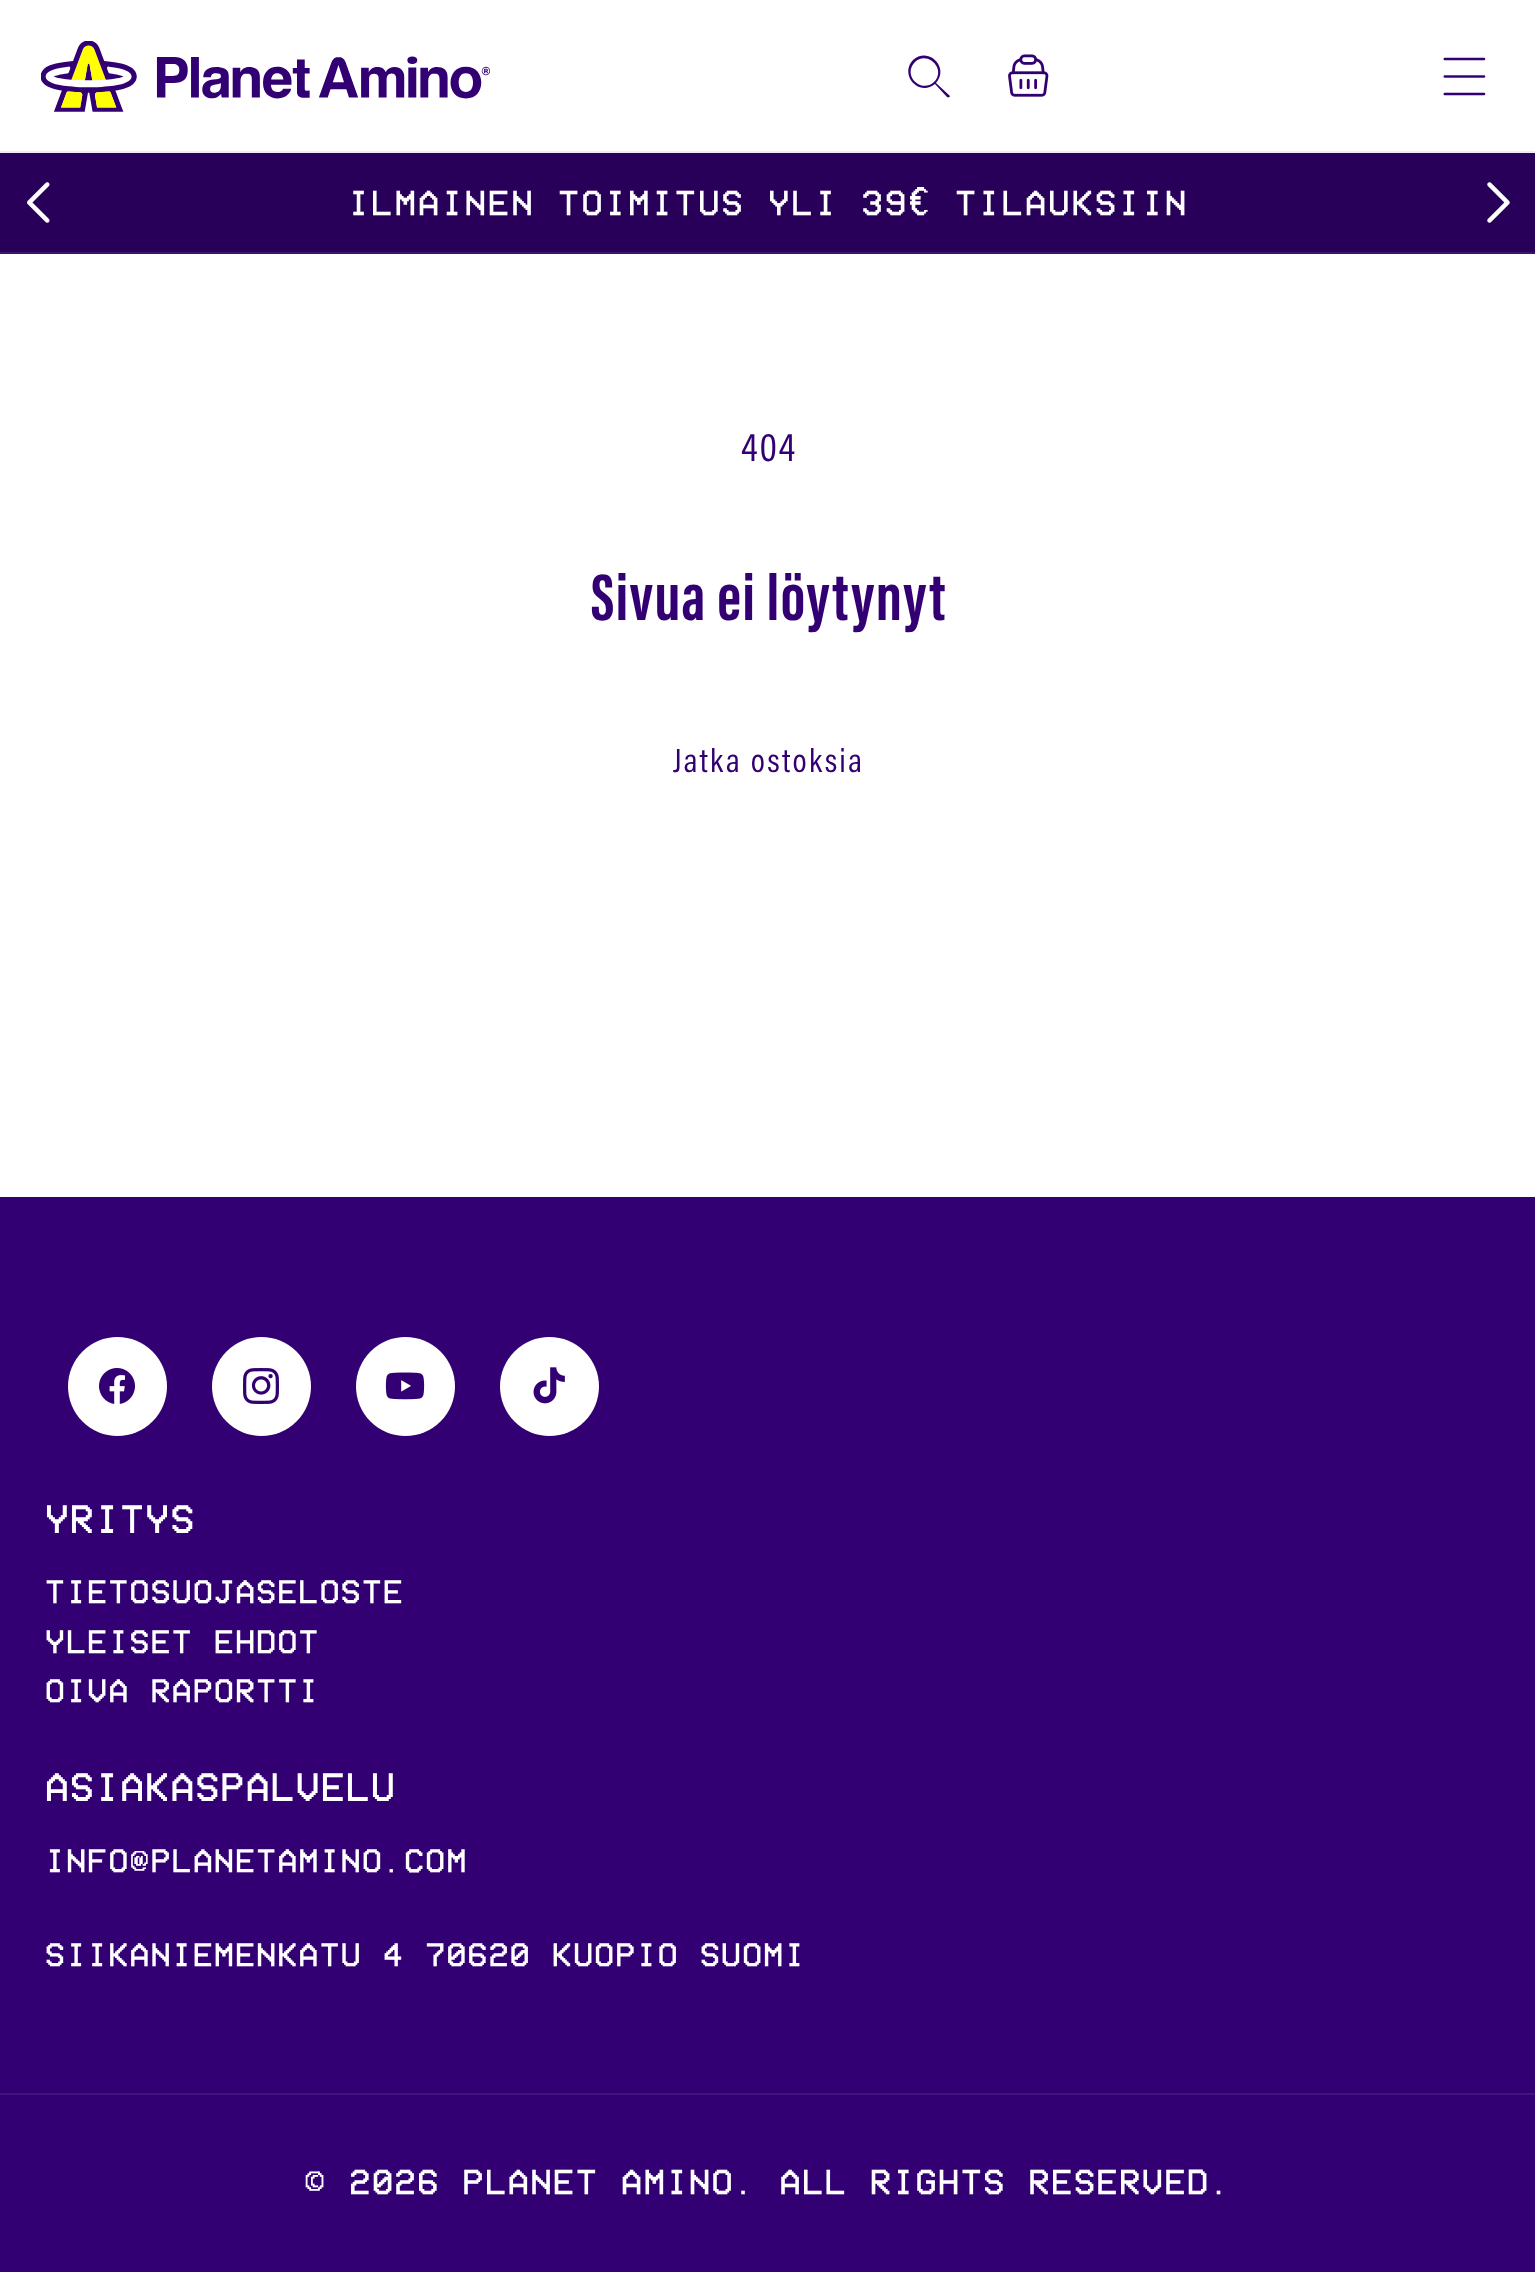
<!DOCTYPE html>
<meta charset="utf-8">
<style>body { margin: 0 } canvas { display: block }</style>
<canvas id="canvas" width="1535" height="2272"></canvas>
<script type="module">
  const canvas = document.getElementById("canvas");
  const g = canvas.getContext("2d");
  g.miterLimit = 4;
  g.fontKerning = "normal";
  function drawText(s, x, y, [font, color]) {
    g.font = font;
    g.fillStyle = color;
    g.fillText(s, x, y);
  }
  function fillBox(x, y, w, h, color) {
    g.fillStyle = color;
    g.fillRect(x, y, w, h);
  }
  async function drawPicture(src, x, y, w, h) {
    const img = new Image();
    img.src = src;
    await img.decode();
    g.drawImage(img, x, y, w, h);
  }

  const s1 = ["36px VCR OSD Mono", "#FFFFFF"];
  const s2 = ["40.5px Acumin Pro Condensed", "#330073"];
  const s3 = ["bold 67.5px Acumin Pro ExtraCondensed", "#330073"];
  const s4 = ["33.75px Acumin Pro Condensed", "#330073"];
  const s5 = ["40.5px VCR OSD Mono", "#FFFFFF"];
  const s6 = ["33.75px VCR OSD Mono", "#FFFFFF"];

  fillBox(0, 0, 1535, 2272, "#FFFFFF");
  fillBox(0, 151, 1535, 2, "#EFEBF4");
  await drawPicture("pic1.png", 41, 41, 449, 71);
  g.fillStyle = "#330073";
  g.beginPath();
  g.moveTo(934, 82);
  g.bezierCurveTo(921, 94, 902, 75, 915, 62);
  g.bezierCurveTo(927, 50, 947, 69, 934, 82);
  g.moveTo(935, 84);
  g.bezierCurveTo(919, 97, 899, 75, 913, 60);
  g.bezierCurveTo(928, 46, 950, 67, 936, 83);
  g.lineTo(950, 96);
  g.bezierCurveTo(950, 97, 948, 98, 947, 97);
  g.closePath();
  g.fill("evenodd");
  await drawPicture("pic2.png", 1008, 54, 41, 43);
  await drawPicture("pic3.png", 1443, 57, 43, 39);
  fillBox(0, 153, 1535, 99, "#28005A");
  fillBox(0, 252, 1535, 2, "#391467");
  await drawPicture("pic4.png", 27, 182, 23, 41);
  g.letterSpacing = "2.25px";
  drawText("ILMAINEN TOIMITUS YLI 39€ TILAUKSIIN", 348, 217, s1);
  await drawPicture("pic5.png", 1487, 182, 23, 41);
  g.letterSpacing = "1.35px";
  drawText("404", 741, 461, s2);
  drawText("Sivua ei löytynyt", 591, 620, s3);
  g.letterSpacing = "2.25px";
  drawText("Jatka ostoksia", 673, 772, s4);
  fillBox(0, 1197, 1535, 1075, "#330073");
  g.fillStyle = "#FFFFFF";
  g.beginPath();
  g.arc(117.5, 1386.5, 49.5, 0, Math.PI * 2);
  g.fill();
  await drawPicture("pic6.png", 99, 1368, 36, 36);
  g.beginPath();
  g.arc(261.5, 1386.5, 49.5, 0, Math.PI * 2);
  g.fill();
  await drawPicture("pic7.png", 243, 1368, 36, 36);
  g.beginPath();
  g.arc(405.5, 1386.5, 49.5, 0, Math.PI * 2);
  g.fill();
  await drawPicture("pic8.png", 385, 1372, 40, 28);
  g.beginPath();
  g.arc(549.5, 1386.5, 49.5, 0, Math.PI * 2);
  g.fill();
  await drawPicture("pic9.png", 533, 1367, 32, 37);
  g.letterSpacing = "1.35px";
  drawText("YRITYS", 45, 1535, s5);
  drawText("TIETOSUOJASELOSTE", 45, 1605, s6);
  drawText("YLEISET EHDOT", 45, 1655, s6);
  drawText("OIVA RAPORTTI", 45, 1704, s6);
  drawText("ASIAKASPALVELU", 45, 1803, s5);
  drawText("INFO@PLANETAMINO.COM", 45, 1874, s6);
  drawText("SIIKANIEMENKATU 4 70620 KUOPIO SUOMI", 45, 1968, s6);
  fillBox(0, 2093, 1535, 2, "#43147E");
  g.letterSpacing = "1.55px";
  drawText("© 2026 PLANET AMINO. ALL RIGHTS RESERVED.", 304, 2196, s1);
</script>
